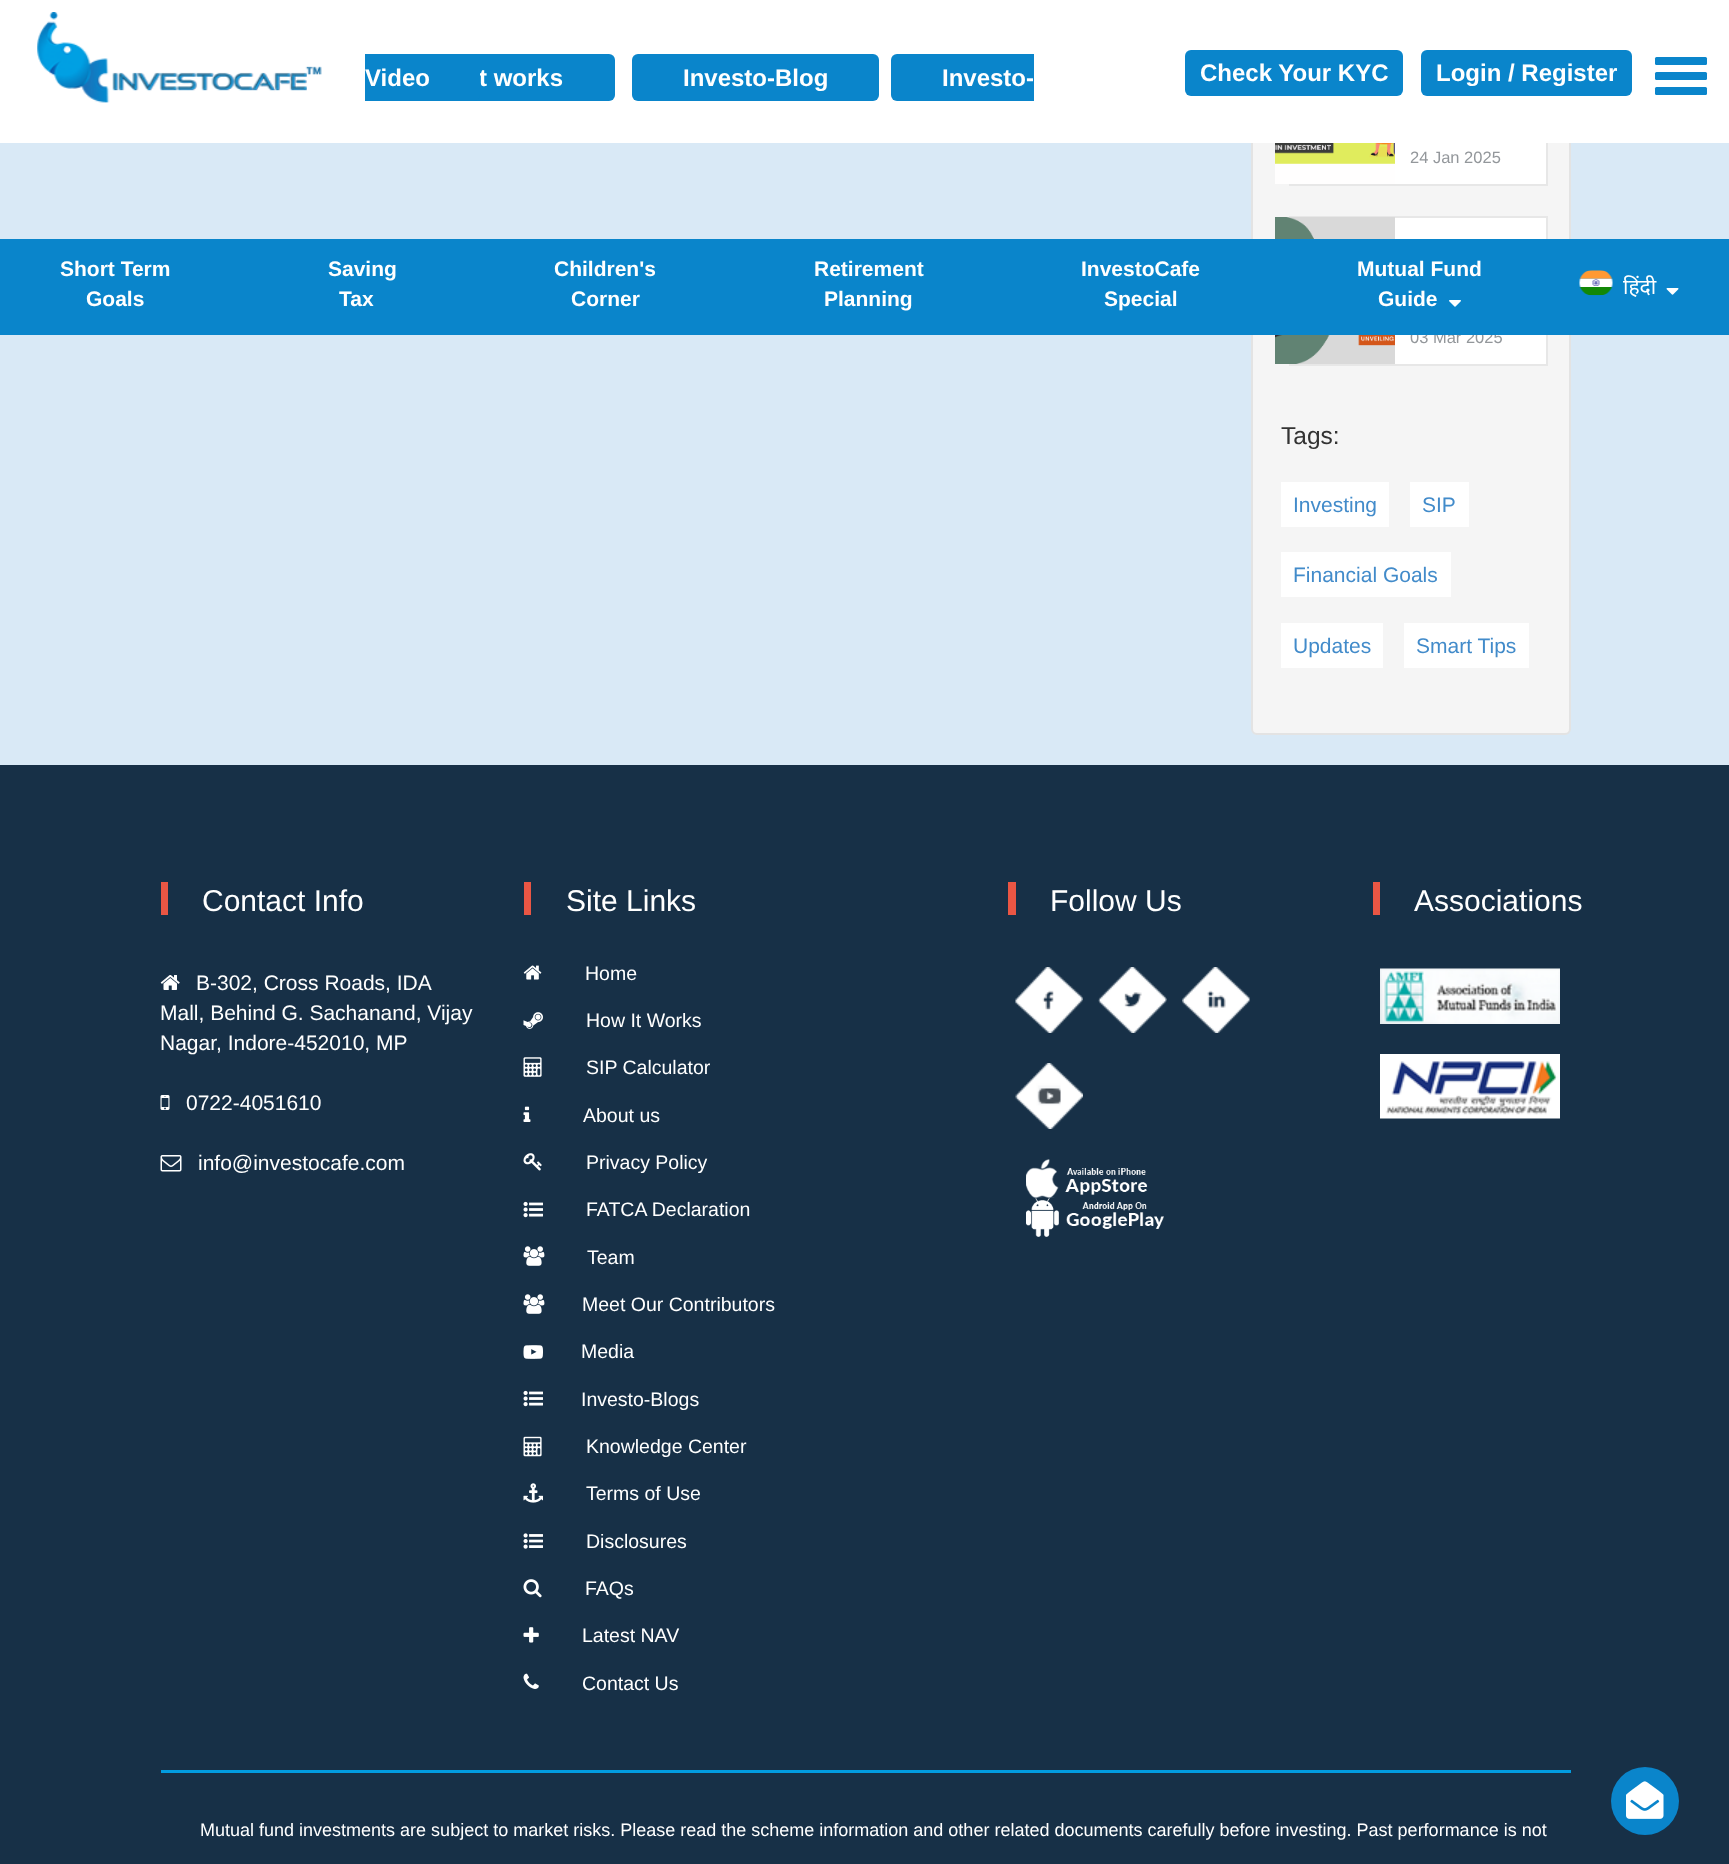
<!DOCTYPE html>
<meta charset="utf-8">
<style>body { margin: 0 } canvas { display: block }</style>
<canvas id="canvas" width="1729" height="1864"></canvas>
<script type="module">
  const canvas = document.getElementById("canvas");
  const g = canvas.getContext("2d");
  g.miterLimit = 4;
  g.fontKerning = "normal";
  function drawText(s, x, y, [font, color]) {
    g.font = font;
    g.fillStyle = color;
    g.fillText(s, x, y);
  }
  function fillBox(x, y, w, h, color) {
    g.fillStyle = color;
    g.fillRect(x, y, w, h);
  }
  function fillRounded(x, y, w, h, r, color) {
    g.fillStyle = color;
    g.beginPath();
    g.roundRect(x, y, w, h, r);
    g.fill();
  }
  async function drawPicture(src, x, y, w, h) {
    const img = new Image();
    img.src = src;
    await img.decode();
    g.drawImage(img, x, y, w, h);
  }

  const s1 = ["bold 24px Liberation Sans", "#FFFFFF"];
  const s2 = ["16.5px Liberation Sans", "#93979B"];
  const s3 = ["24.5px Liberation Sans", "#333333"];
  const s4 = ["21px Liberation Sans", "#428BCA"];
  const s5 = ["bold 21px Liberation Sans", "#FFFFFF"];
  const s6 = ["21px Noto Sans", "#FFFFFF"];
  const s7 = ["30px Liberation Sans", "#FFFFFF"];
  const s8 = ["21px Liberation Sans", "#FFFFFF"];
  const s9 = ["19.5px Liberation Sans", "#FFFFFF"];
  const s10 = ["18px Liberation Sans", "#FFFFFF"];

  fillBox(0, 0, 1729, 1864, "#D9E9F6");
  g.fillStyle = "#F5F5F5";
  g.beginPath();
  g.roundRect(1252, -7, 318, 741, 5);
  g.fill();
  g.strokeStyle = "#E3E3E3";
  g.lineWidth = 2;
  g.stroke();
  fillBox(1395, 143, 151, 41, "#FFFFFF");
  g.strokeStyle = "#E7E7E7";
  g.strokeRect(1290, 39, 257, 146);
  fillBox(0, 0, 1729, 143, "#FFFFFF");
  await drawPicture("pic1.png", 37, 12, 285, 91);
  fillRounded(365, 54, 250, 47, 6, "#0A85CB");
  drawText("t works", 479, 86, s1);
  g.fillStyle = "#0A85CB";
  g.beginPath();
  g.roundRect(365, 54, 115, 47, [0, 6, 6, 0]);
  g.fill();
  drawText("Video", 365, 86, s1);
  fillRounded(632, 54, 247, 47, 6, "#0A85CB");
  drawText("Investo-Blog", 683, 86, s1);
  g.fillStyle = "#0A85CB";
  g.beginPath();
  g.roundRect(891, 54, 143, 47, [6, 0, 0, 6]);
  g.fill();
  drawText("Investo-", 942, 86, s1);
  fillRounded(1185, 50, 218, 46, 6, "#0A85CB");
  drawText("Check Your KYC", 1200, 81, s1);
  fillRounded(1421, 50, 211, 46, 6, "#0A85CB");
  drawText("Login / Register", 1436, 81, s1);
  fillBox(0, 765, 1729, 1099, "#173047");
  g.fillStyle = "#0A85CB";
  g.beginPath();
  g.arc(1645, 1801, 34, 0, Math.PI * 2);
  g.fill();
  await drawPicture("pic2.png", 1626, 1781, 38, 38);
  fillRounded(1655, 72, 52, 8, 1.5, "#0A85CB");
  fillRounded(1655, 57, 52, 8, 1.5, "#0A85CB");
  fillRounded(1655, 87, 52, 8, 1.5, "#0A85CB");
  await drawPicture("pic3.png", 1275, 143, 120, 41);
  drawText("24 Jan 2025", 1410, 163, s2);
  fillBox(1395, 218, 151, 146, "#FFFFFF");
  g.strokeRect(1290, 217, 257, 148);
  await drawPicture("pic4.png", 1275, 217, 120, 147);
  drawText("03 Mar 2025", 1410, 343, s2);
  drawText("Tags:", 1281, 444, s3);
  fillBox(1281, 482, 108, 45, "#FFFFFF");
  drawText("Investing", 1293, 512, s4);
  fillBox(1410, 482, 59, 45, "#FFFFFF");
  drawText("SIP", 1422, 512, s4);
  fillBox(1281, 552, 170, 45, "#FFFFFF");
  drawText("Financial Goals", 1293, 582, s4);
  fillBox(1281, 623, 102, 45, "#FFFFFF");
  drawText("Updates", 1293, 653, s4);
  fillBox(1404, 623, 125, 45, "#FFFFFF");
  drawText("Smart Tips", 1416, 653, s4);
  fillBox(0, 239, 1729, 96, "#0A85CB");
  drawText("Short Term", 60, 276, s5);
  drawText("Goals", 86, 306, s5);
  drawText("Saving", 328, 276, s5);
  drawText("Tax", 339, 306, s5);
  drawText("Children's", 554, 276, s5);
  drawText("Corner", 571, 306, s5);
  drawText("Retirement", 814, 276, s5);
  drawText("Planning", 824, 306, s5);
  drawText("InvestoCafe", 1081, 276, s5);
  drawText("Special", 1104, 306, s5);
  drawText("Mutual Fund", 1357, 276, s5);
  drawText("Guide", 1378, 306, s5);
  await drawPicture("pic5.png", 1449, 300, 12, 7);
  await drawPicture("pic6.png", 1579, 270, 34, 26);
  drawText("हिंदी", 1623, 294, s6);
  await drawPicture("pic7.png", 1666, 288, 13, 7);
  fillBox(161, 882, 7, 33, "#EA5644");
  drawText("Contact Info", 202, 911, s7);
  await drawPicture("pic8.png", 160, 975, 20, 15);
  drawText("B-302, Cross Roads, IDA", 196, 990, s8);
  drawText("Mall, Behind G. Sachanand, Vijay", 160, 1020, s8);
  drawText("Nagar, Indore-452010, MP", 160, 1050, s8);
  await drawPicture("pic9.png", 160, 1095, 10, 15);
  drawText("0722-4051610", 186, 1110, s8);
  await drawPicture("pic10.png", 160, 1155, 22, 17);
  drawText("info@investocafe.com", 198, 1170, s8);
  fillBox(524, 882, 7, 33, "#EA5644");
  drawText("Site Links", 566, 911, s7);
  await drawPicture("pic11.png", 523, 965, 19, 15);
  drawText("Home", 585, 980, s9);
  await drawPicture("pic12.png", 523, 1012, 20, 17);
  drawText("How It Works", 586, 1027, s9);
  await drawPicture("pic13.png", 523, 1057, 19, 20);
  drawText("SIP Calculator", 586, 1074, s9);
  await drawPicture("pic14.png", 523, 1106, 8, 16);
  drawText("About us", 583, 1122, s9);
  await drawPicture("pic15.png", 523, 1153, 19, 18);
  drawText("Privacy Policy", 586, 1169, s9);
  await drawPicture("pic16.png", 523, 1201, 20, 17);
  drawText("FATCA Declaration", 586, 1216, s9);
  await drawPicture("pic17.png", 523, 1246, 22, 20);
  drawText("Team", 587, 1264, s9);
  await drawPicture("pic17.png", 523, 1294, 22, 20);
  drawText("Meet Our Contributors", 582, 1311, s9);
  await drawPicture("pic18.png", 523, 1345, 20, 14);
  drawText("Media", 581, 1358, s9);
  await drawPicture("pic16.png", 523, 1390, 20, 17);
  drawText("Investo-Blogs", 581, 1406, s9);
  await drawPicture("pic19.png", 523, 1436, 19, 21);
  drawText("Knowledge Center", 586, 1453, s9);
  await drawPicture("pic20.png", 523, 1483, 20, 20);
  drawText("Terms of Use", 586, 1500, s9);
  await drawPicture("pic21.png", 523, 1533, 20, 16);
  drawText("Disclosures", 586, 1548, s9);
  await drawPicture("pic22.png", 523, 1579, 19, 19);
  drawText("FAQs", 585, 1595, s9);
  await drawPicture("pic23.png", 523, 1627, 16, 16);
  drawText("Latest NAV", 582, 1642, s9);
  await drawPicture("pic24.png", 523, 1673, 16, 16);
  drawText("Contact Us", 582, 1690, s9);
  fillBox(1008, 882, 8, 33, "#EA5644");
  drawText("Follow Us", 1050, 911, s7);
  await drawPicture("pic25.png", 1015, 967, 68, 66);
  await drawPicture("pic26.png", 1098, 967, 69, 66);
  await drawPicture("pic27.png", 1182, 967, 68, 66);
  await drawPicture("pic28.png", 1015, 1063, 68, 66);
  await drawPicture("pic29.png", 1026, 1159, 122, 39);
  await drawPicture("pic30.png", 1026, 1198, 138, 39);
  fillBox(1373, 882, 7, 33, "#EA5644");
  drawText("Associations", 1414, 911, s7);
  await drawPicture("pic31.png", 1380, 968, 180, 56);
  await drawPicture("pic32.png", 1380, 1054, 180, 65);
  fillBox(161, 1770, 1410, 3, "#029CE0");
  drawText("Mutual fund investments are subject to market risks. Please read the scheme information and other related documents carefully before investing. Past performance is not", 200, 1836, s10);
</script>
